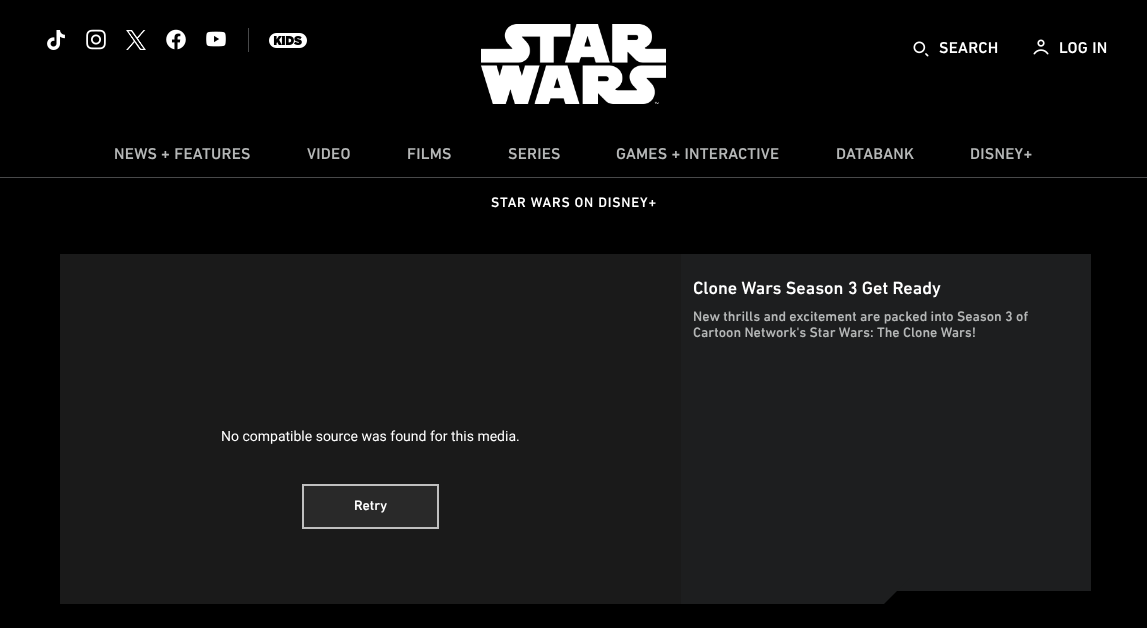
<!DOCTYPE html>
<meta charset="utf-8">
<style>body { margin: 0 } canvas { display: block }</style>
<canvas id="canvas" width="1147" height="628"></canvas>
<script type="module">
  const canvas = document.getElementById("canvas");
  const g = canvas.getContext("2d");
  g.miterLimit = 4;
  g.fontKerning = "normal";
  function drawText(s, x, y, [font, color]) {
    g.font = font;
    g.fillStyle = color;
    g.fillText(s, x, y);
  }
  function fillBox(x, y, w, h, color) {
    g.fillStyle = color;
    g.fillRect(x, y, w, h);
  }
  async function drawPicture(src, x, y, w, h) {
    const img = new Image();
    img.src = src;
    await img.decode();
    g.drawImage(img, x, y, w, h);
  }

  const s1 = ["500 16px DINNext", "#FFFFFF"];
  const s2 = ["500 16px DINNext", "#B5B7B7"];
  const s3 = ["500 14px DINNext", "#FFFFFF"];
  const s4 = ["500 18px DINNext", "#FFFFFF"];
  const s5 = ["500 14px DINNext", "#B5B7B7"];
  const s6 = ["14px Roboto", "#FFFFFF"];

  fillBox(0, 0, 1147, 628, "#000000");
  await drawPicture("pic1.png", 47, 30, 18, 20);
  await drawPicture("pic2.png", 86, 29, 20, 21);
  await drawPicture("pic3.png", 126, 30, 20, 20);
  await drawPicture("pic4.png", 166, 29, 20, 21);
  await drawPicture("pic5.png", 206, 31, 20, 16);
  fillBox(248, 28, 1, 24, "#48494A");
  await drawPicture("pic6.png", 269, 33, 38, 15);
  await drawPicture("pic7.png", 481, 24, 185, 80);
  await drawPicture("pic8.png", 913, 41, 16, 16);
  g.letterSpacing = "0.25px";
  drawText("SEARCH", 939, 53, s1);
  await drawPicture("pic9.png", 1033, 39, 16, 16);
  drawText("LOG IN", 1059, 53, s1);
  fillBox(0, 177, 1147, 1, "#48494A");
  drawText("NEWS + FEATURES", 114, 159, s2);
  drawText("VIDEO", 307, 159, s2);
  drawText("FILMS", 407, 159, s2);
  drawText("SERIES", 508, 159, s2);
  drawText("GAMES + INTERACTIVE", 616, 159, s2);
  drawText("DATABANK", 836, 159, s2);
  drawText("DISNEY+", 970, 159, s2);
  g.letterSpacing = "0.8px";
  drawText("STAR WARS ON DISNEY+", 491, 207, s3);
  fillBox(681, 254, 410, 337, "#1D1E1F");
  g.letterSpacing = "0px";
  drawText("Clone Wars Season 3 Get Ready", 693, 294, s4);
  drawText("New thrills and excitement are packed into Season 3 of", 693, 321, s5);
  drawText("Cartoon Network's Star Wars: The Clone Wars!", 693, 337, s5);
  g.fillStyle = "#1D1E1F";
  g.beginPath();
  g.moveTo(677, 578);
  g.lineTo(910, 578);
  g.lineTo(884, 604);
  g.lineTo(677, 604);
  g.closePath();
  g.fill();
  fillBox(60, 254, 621, 350, "#1A1A1A");
  drawText("No compatible source was found for this media.", 221, 441, s6);
  g.fillStyle = "#292929";
  g.beginPath();
  g.rect(303, 485, 135, 43);
  g.fill();
  g.strokeStyle = "#BFBFBF";
  g.lineWidth = 2;
  g.stroke();
  drawText("Retry", 354, 510, s3);
</script>
